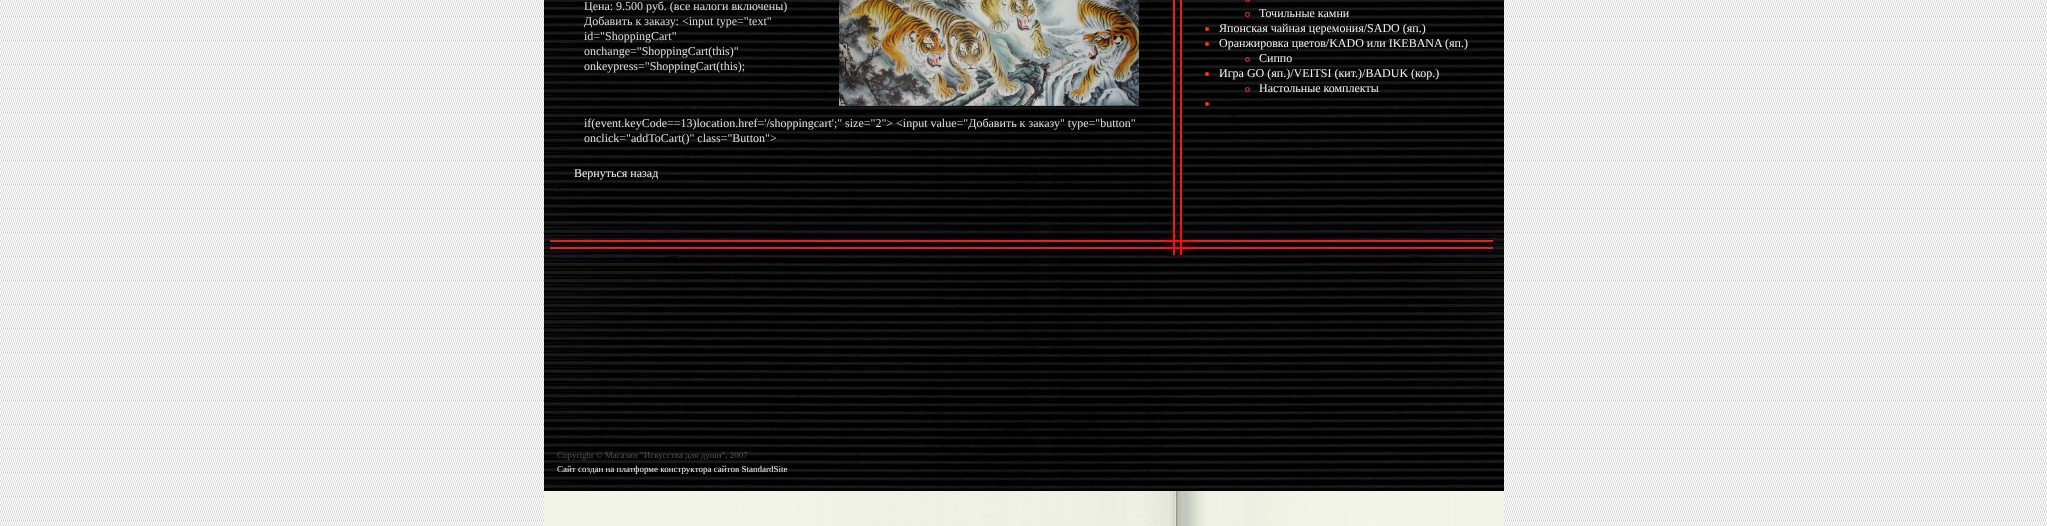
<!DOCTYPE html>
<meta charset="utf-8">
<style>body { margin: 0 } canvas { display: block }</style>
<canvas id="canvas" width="2047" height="526"></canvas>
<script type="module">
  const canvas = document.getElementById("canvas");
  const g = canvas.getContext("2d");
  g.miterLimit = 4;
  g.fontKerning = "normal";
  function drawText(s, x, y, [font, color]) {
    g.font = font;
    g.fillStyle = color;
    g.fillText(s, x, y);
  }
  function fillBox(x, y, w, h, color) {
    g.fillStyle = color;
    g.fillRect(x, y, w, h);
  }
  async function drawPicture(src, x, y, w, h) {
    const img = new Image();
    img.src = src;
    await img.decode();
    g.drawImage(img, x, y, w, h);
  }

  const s1 = ["12px Liberation Serif", "#DDDDDD"];
  const s2 = ["12px Liberation Serif", "#EEEEEE"];
  const s3 = ["9px Liberation Serif", "#515151"];
  const s4 = ["9px Liberation Serif", "#EEEEEE"];

  fillBox(0, 0, 2047, 526, "#FFFFFF");
  await drawPicture("pic1.png", 0, 0, 2047, 526);
  await drawPicture("pic2.png", 544, 491, 960, 35);
  await drawPicture("pic3.png", 544, 0, 960, 226);
  drawText("Цена: 9.500 руб. (все налоги включены)", 584, 10, s1);
  await drawPicture("pic4.png", 839, 0, 300, 106);
  drawText("Добавить к заказу: <input type=\"text\"", 584, 25, s1);
  drawText("id=\"ShoppingCart\"", 584, 40, s1);
  drawText("onchange=\"ShoppingCart(this)\"", 584, 55, s1);
  drawText("onkeypress=\"ShoppingCart(this);", 584, 70, s1);
  drawText("if(event.keyCode==13)location.href='/shoppingcart';\" size=\"2\"> <input value=\"Добавить к заказу\" type=\"button\"", 584, 127, s1);
  drawText("onclick=\"addToCart()\" class=\"Button\">", 584, 142, s1);
  drawText("Вернуться назад", 574, 177, s2);
  g.beginPath();
  g.arc(1247.5, -0.5, 2, 0, Math.PI * 2);
  g.strokeStyle = "#FF3322";
  g.stroke();
  g.beginPath();
  g.arc(1247.5, 14.5, 2, 0, Math.PI * 2);
  g.stroke();
  drawText("Точильные камни", 1259, 17, s2);
  g.fillStyle = "#FF3322";
  g.beginPath();
  g.arc(1207, 29, 2, 0, Math.PI * 2);
  g.fill();
  drawText("Японская чайная церемония/SADO (яп.)", 1219, 32, s2);
  g.fillStyle = "#FF3322";
  g.beginPath();
  g.arc(1207, 44, 2, 0, Math.PI * 2);
  g.fill();
  drawText("Оранжировка цветов/KADO или IKEBANA (яп.)", 1219, 47, s2);
  g.beginPath();
  g.arc(1247.5, 59.5, 2, 0, Math.PI * 2);
  g.stroke();
  drawText("Сиппо", 1259, 62, s2);
  g.fillStyle = "#FF3322";
  g.beginPath();
  g.arc(1207, 74, 2, 0, Math.PI * 2);
  g.fill();
  drawText("Игра GO (яп.)/VEITSI (кит.)/BADUK (кор.)", 1219, 77, s2);
  g.beginPath();
  g.arc(1247.5, 89.5, 2, 0, Math.PI * 2);
  g.stroke();
  drawText("Настольные комплекты", 1259, 92, s2);
  g.fillStyle = "#FF3322";
  g.beginPath();
  g.arc(1207, 104, 2, 0, Math.PI * 2);
  g.fill();
  await drawPicture("pic5.png", 544, 226, 960, 265);
  drawText("Copyright © Магазин \"Искусства для души\", 2007", 557, 458, s3);
  drawText("Сайт создан на платформе конструктора сайтов StandardSite", 557, 472, s4);
</script>
